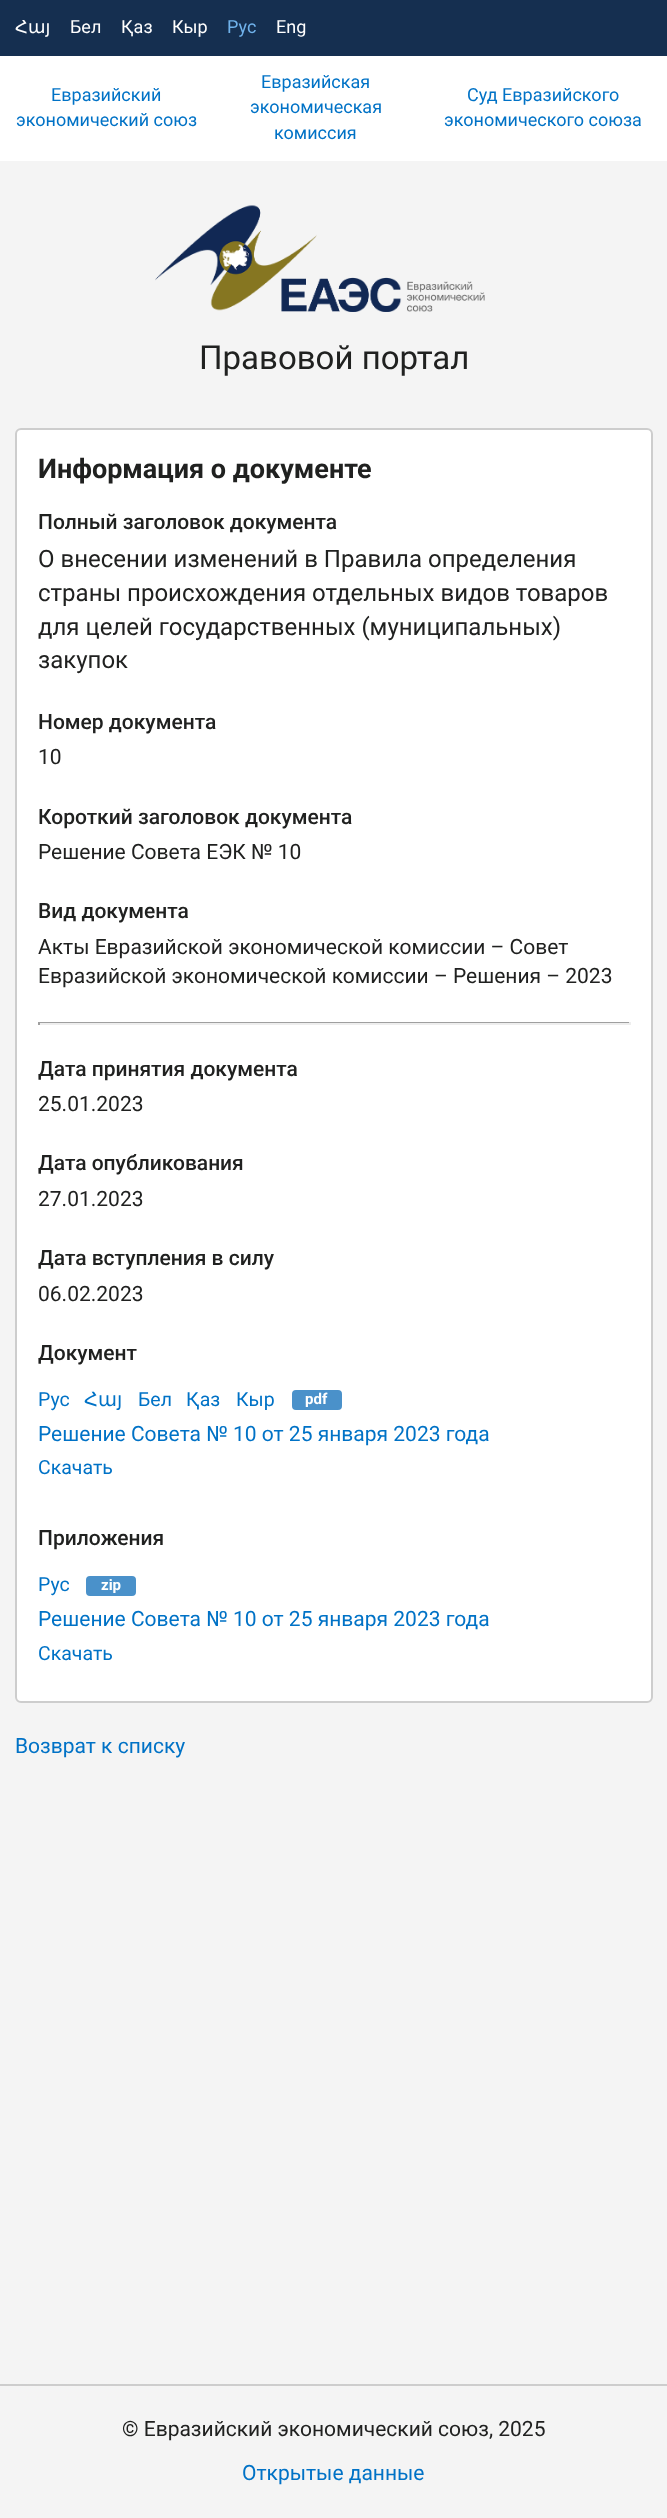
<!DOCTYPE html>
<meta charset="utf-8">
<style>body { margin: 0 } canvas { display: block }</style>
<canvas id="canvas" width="667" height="2518"></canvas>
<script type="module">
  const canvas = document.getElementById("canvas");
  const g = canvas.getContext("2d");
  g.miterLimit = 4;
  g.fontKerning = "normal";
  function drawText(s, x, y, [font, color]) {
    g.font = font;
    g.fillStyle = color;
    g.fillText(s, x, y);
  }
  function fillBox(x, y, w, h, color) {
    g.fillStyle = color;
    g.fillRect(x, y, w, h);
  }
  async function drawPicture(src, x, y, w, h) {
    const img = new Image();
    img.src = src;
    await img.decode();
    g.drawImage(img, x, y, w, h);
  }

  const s1 = ["18px DejaVu Sans", "#FFFFFF"];
  const s2 = ["18px Roboto", "#FFFFFF"];
  const s3 = ["18px Roboto", "#70B2EB"];
  const s4 = ["18px Roboto", "#0072C6"];
  const s5 = ["33px Roboto", "#202120"];
  const s6 = ["bold 27px Roboto", "#202120"];
  const s7 = ["500 21px Roboto", "#202120"];
  const s8 = ["24px Roboto", "#202120"];
  const s9 = ["21px Roboto", "#202120"];
  const s10 = ["19.5px Roboto", "#0072C6"];
  const s11 = ["19.5px DejaVu Sans", "#0072C6"];
  const s12 = ["bold 15px Roboto", "#FFFFFF"];
  const s13 = ["21px Roboto", "#0072C6"];

  fillBox(0, 0, 667, 2518, "#F4F4F4");
  fillBox(0, 0, 667, 56, "#152F50");
  drawText("Հայ", 15, 33, s1);
  drawText("Бел", 70, 33, s2);
  drawText("Қаз", 121, 33, s2);
  drawText("Кыр", 172, 33, s2);
  drawText("Рус", 227, 33, s3);
  drawText("Eng", 276, 33, s2);
  fillBox(0, 56, 667, 105, "#FFFFFF");
  drawText("Евразийский", 51, 101, s4);
  drawText("экономический союз", 16, 126, s4);
  drawText("Евразийская", 261, 88, s4);
  drawText("экономическая", 250, 113, s4);
  drawText("комиссия", 274, 139, s4);
  drawText("Суд Евразийского", 467, 101, s4);
  drawText("экономического союза", 444, 126, s4);
  await drawPicture("pic1.png", 155, 205, 330, 107);
  drawText("Правовой портал", 199, 369, s5);
  g.fillStyle = "#FFFFFF";
  g.beginPath();
  g.roundRect(16, 429, 636, 1273, 5);
  g.fill();
  g.strokeStyle = "#CDCDCD";
  g.lineWidth = 2;
  g.stroke();
  drawText("Информация о документе", 38, 478, s6);
  drawText("Полный заголовок документа", 38, 529, s7);
  drawText("О внесении изменений в Правила определения", 38, 567, s8);
  drawText("страны происхождения отдельных видов товаров", 38, 601, s8);
  drawText("для целей государственных (муниципальных)", 38, 635, s8);
  drawText("закупок", 38, 668, s8);
  drawText("Номер документа", 38, 729, s7);
  drawText("10", 38, 764, s9);
  drawText("Короткий заголовок документа", 38, 824, s7);
  drawText("Решение Совета ЕЭК № 10", 38, 859, s9);
  drawText("Вид документа", 38, 918, s7);
  drawText("Акты Евразийской экономической комиссии – Совет", 38, 954, s9);
  drawText("Евразийской экономической комиссии – Решения – 2023", 38, 983, s9);
  fillBox(38, 1022, 592, 1, "#9F9F9F");
  fillBox(629, 1022, 2, 3, "#EEEEEE");
  fillBox(38, 1023, 592, 2, "#EEEEEE");
  fillBox(38, 1022, 2, 3, "#9F9F9F");
  drawText("Дата принятия документа", 38, 1076, s7);
  drawText("25.01.2023", 38, 1111, s9);
  drawText("Дата опубликования", 38, 1170, s7);
  drawText("27.01.2023", 38, 1206, s9);
  drawText("Дата вступления в силу", 38, 1265, s7);
  drawText("06.02.2023", 38, 1301, s9);
  drawText("Документ", 38, 1360, s7);
  drawText("Рус", 38, 1406, s10);
  drawText("Հայ", 84, 1406, s11);
  drawText("Бел", 138, 1406, s10);
  drawText("Қаз", 186, 1406, s10);
  drawText("Кыр", 236, 1406, s10);
  g.fillStyle = "#4A91CA";
  g.beginPath();
  g.roundRect(291, 1389, 52, 22, 5);
  g.fill();
  g.strokeStyle = "#FFFFFF";
  g.stroke();
  drawText("pdf", 305, 1404, s12);
  drawText("Решение Совета № 10 от 25 января 2023 года", 38, 1441, s13);
  drawText("Скачать", 38, 1474, s10);
  drawText("Приложения", 38, 1545, s7);
  drawText("Рус", 38, 1591, s10);
  g.fillStyle = "#4A91CA";
  g.beginPath();
  g.roundRect(85, 1575, 52, 22, 5);
  g.fill();
  g.stroke();
  drawText("zip", 101, 1590, s12);
  drawText("Решение Совета № 10 от 25 января 2023 года", 38, 1626, s13);
  drawText("Скачать", 38, 1660, s10);
  drawText("Возврат к списку", 15, 1753, s13);
  fillBox(0, 2384, 667, 2, "#CDCDCD");
  drawText("© Евразийский экономический союз, 2025", 122, 2436, s9);
  drawText("Открытые данные", 242, 2480, s13);
</script>
